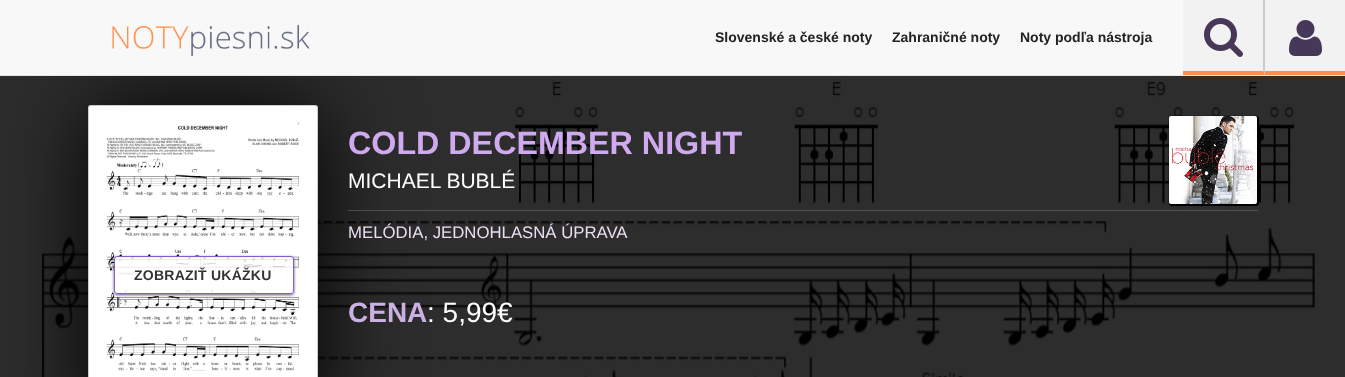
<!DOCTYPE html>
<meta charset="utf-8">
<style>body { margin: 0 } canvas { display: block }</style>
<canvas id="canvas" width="1345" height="377"></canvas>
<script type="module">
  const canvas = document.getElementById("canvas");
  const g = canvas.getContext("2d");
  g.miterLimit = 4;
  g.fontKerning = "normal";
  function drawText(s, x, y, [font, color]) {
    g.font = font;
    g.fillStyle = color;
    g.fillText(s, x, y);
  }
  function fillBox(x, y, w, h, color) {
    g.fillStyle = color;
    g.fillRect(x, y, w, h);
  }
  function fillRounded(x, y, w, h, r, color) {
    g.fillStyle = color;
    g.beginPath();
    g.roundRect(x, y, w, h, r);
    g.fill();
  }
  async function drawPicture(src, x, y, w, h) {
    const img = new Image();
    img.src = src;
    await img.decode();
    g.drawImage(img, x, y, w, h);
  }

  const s1 = ["bold 14px Liberation Sans", "#222222"];
  const s2 = ["bold 32.25px Liberation Sans", "#CFAAEF"];
  const s3 = ["21px Liberation Sans", "#FFFFFF"];
  const s4 = ["16.75px Liberation Sans", "#E8DDF1"];
  const s5 = ["bold 14px Liberation Sans", "#333333"];
  const s6 = ["bold 28px Liberation Sans", "#CBB1E1"];
  const s7 = ["28px Liberation Sans", "#FFFFFF"];

  fillBox(0, 0, 1345, 377, "#FFFFFF");
  await drawPicture("pic4.png", 0, 76, 1345, 301);
  g.fillStyle = "#000000";
  g.filter = "blur(45px)";
  g.beginPath();
  g.roundRect(89, 106, 230, 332, 3);
  g.fill();
  g.filter = "none";
  fillBox(0, 0, 1183, 75, "#F8F8F8");
  fillBox(0, 75, 1345, 1, "#E5E5E5");
  await drawPicture("pic1.png", 112, 24, 198, 32);
  drawText("Slovenské a české noty", 715, 42, s1);
  drawText("Zahraničné noty", 892, 42, s1);
  drawText("Noty podľa nástroja", 1020, 42, s1);
  fillBox(1183, 0, 82, 75, "#F2F2F2");
  g.fillStyle = "#CCCCCC";
  g.beginPath();
  g.moveTo(1265, 0);
  g.lineTo(1265, 75);
  g.lineTo(1263, 71);
  g.lineTo(1263, 0);
  g.closePath();
  g.fill();
  g.fillStyle = "#FC8F4D";
  g.beginPath();
  g.moveTo(1265, 75);
  g.lineTo(1183, 75);
  g.lineTo(1183, 71);
  g.lineTo(1263, 71);
  g.closePath();
  g.fill();
  await drawPicture("pic2.png", 1204, 18, 39, 39);
  fillBox(1265, 0, 80, 71, "#F2F2F2");
  await drawPicture("pic3.png", 1289, 20, 33, 36);
  fillBox(1265, 71, 80, 4, "#FC8F4D");
  drawText("COLD DECEMBER NIGHT", 348, 154, s2);
  g.fillStyle = "#000000";
  g.filter = "blur(0.5px)";
  g.beginPath();
  g.roundRect(1169, 116, 90, 90, 3);
  g.fill();
  g.filter = "none";
  g.beginPath();
  g.roundRect(1168.5, 115.5, 89, 89, 2.5);
  g.strokeStyle = "rgba(0, 0, 0, 0.2)";
  g.stroke();
  await drawPicture("pic5.png", 1169, 116, 88, 88);
  drawText("MICHAEL BUBLÉ", 348, 188, s3);
  fillBox(348, 210, 910, 1, "rgba(170, 170, 170, 0.3)");
  drawText("MELÓDIA, JEDNOHLASNÁ ÚPRAVA", 348, 238, s4);
  fillRounded(88, 105, 230, 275, 3, "#FFFFFF");
  g.beginPath();
  g.roundRect(88.5, 105.5, 229, 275, 2.5);
  g.stroke();
  await drawPicture("pic6.png", 106, 122, 193, 250);
  g.save();
  g.beginPath();
  g.moveTo(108, 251);
  g.lineTo(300, 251);
  g.lineTo(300, 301);
  g.lineTo(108, 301);
  g.closePath();
  g.moveTo(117, 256);
  g.lineTo(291, 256);
  g.bezierCurveTo(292.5, 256, 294, 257.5, 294, 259);
  g.lineTo(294, 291);
  g.bezierCurveTo(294, 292.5, 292.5, 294, 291, 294);
  g.lineTo(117, 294);
  g.bezierCurveTo(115.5, 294, 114, 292.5, 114, 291);
  g.lineTo(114, 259);
  g.bezierCurveTo(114, 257.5, 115.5, 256, 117, 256);
  g.closePath();
  g.clip("evenodd");
  g.fillStyle = "rgba(65, 39, 97, 0.8)";
  g.filter = "blur(1.5px)";
  g.beginPath();
  g.roundRect(114, 257, 180, 38, 3);
  g.fill();
  g.filter = "none";
  g.restore();
  fillRounded(114, 256, 180, 38, 3, "rgba(255, 255, 255, 0.8)");
  g.beginPath();
  g.roundRect(114.5, 256.5, 179, 37, 2.5);
  g.strokeStyle = "rgba(103, 58, 183, 0.8)";
  g.stroke();
  g.letterSpacing = "0.25px";
  drawText("ZOBRAZIŤ UKÁŽKU", 134, 280, s5);
  g.letterSpacing = "0px";
  drawText("CENA", 348, 322, s6);
  drawText(": 5,99€", 427, 322, s7);
</script>
